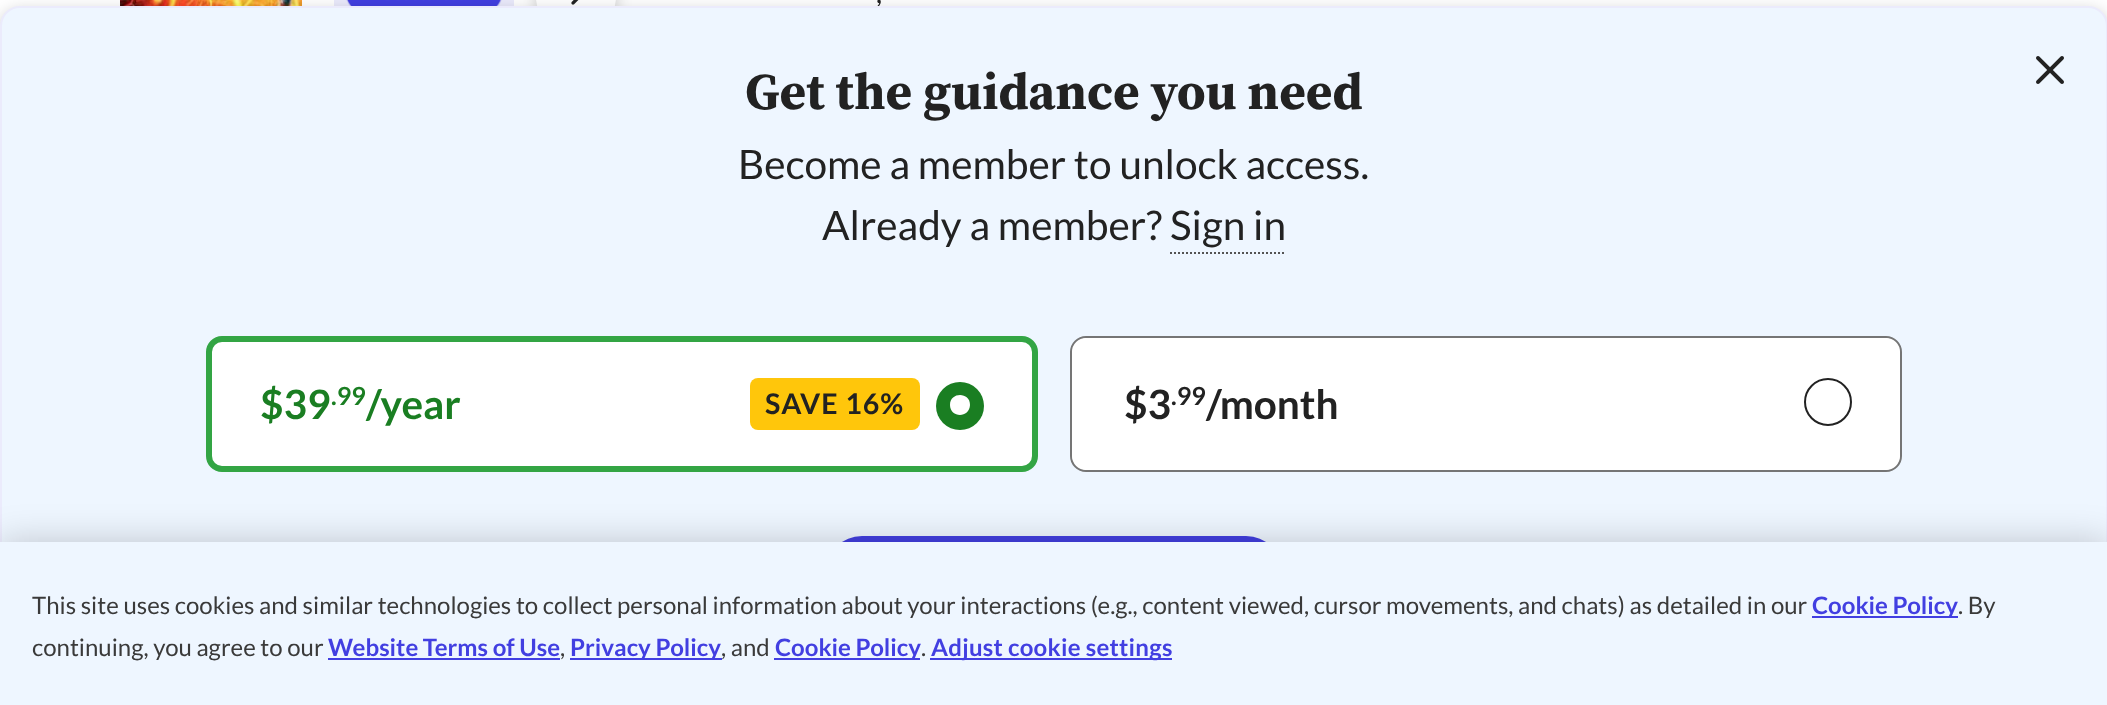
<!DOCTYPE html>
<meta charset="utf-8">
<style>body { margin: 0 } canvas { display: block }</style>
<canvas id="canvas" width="2107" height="705"></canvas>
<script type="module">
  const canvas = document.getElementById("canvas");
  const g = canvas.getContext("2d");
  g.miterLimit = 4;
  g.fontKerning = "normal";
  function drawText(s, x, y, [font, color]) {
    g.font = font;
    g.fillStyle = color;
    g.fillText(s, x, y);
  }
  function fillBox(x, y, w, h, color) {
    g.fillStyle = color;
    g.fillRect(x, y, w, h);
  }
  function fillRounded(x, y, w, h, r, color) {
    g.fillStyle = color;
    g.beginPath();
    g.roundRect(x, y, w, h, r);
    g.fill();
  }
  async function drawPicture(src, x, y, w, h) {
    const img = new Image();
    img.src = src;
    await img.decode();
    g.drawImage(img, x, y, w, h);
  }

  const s1 = ["28.5px Lato", "#222222"];
  const s2 = ["bold 51.25px Source Serif Pro", "#222222"];
  const s3 = ["40.6px Lato", "#222222"];
  const s4 = ["bold 40.5px Lato", "#1A7E22"];
  const s5 = ["bold 25px Lato", "#1A7E22"];
  const s6 = ["bold 28.5px Lato", "#222222"];
  const s7 = ["bold 40.5px Lato", "#222222"];
  const s8 = ["bold 25px Lato", "#222222"];
  const s9 = ["24px Lato", "#3A3A3A"];
  const s10 = ["bold 24px Lato", "#423FE1"];

  fillBox(0, 0, 2107, 705, "#FFFFFF");
  await drawPicture("pic1.png", 120, 0, 182, 6);
  await drawPicture("pic2.png", 334, 0, 180, 6);
  g.fillStyle = "rgba(0, 0, 0, 0.2)";
  g.filter = "blur(8px)";
  g.beginPath();
  g.roundRect(536, -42, 80, 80, 40);
  g.fill();
  g.filter = "none";
  fillRounded(536, -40, 80, 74, 40, "#FFFFFF");
  await drawPicture("pic3.png", 571, 0, 8, 5);
  drawText(",", 876, 3, s1);
  g.fillStyle = "rgba(0, 0, 0, 0.2)";
  g.filter = "blur(8px)";
  g.beginPath();
  g.roundRect(0, 10, 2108, 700, 20);
  g.fill();
  g.filter = "none";
  g.fillStyle = "#EEF6FF";
  g.beginPath();
  g.moveTo(20, 7);
  g.lineTo(2088, 7);
  g.bezierCurveTo(2098.5, 7, 2107, 15.5, 2107, 26);
  g.lineTo(2107, 705);
  g.lineTo(1, 705);
  g.lineTo(1, 26);
  g.bezierCurveTo(1, 15.5, 9.5, 7, 20, 7);
  g.closePath();
  g.fill();
  g.strokeStyle = "#EBEBFC";
  g.lineWidth = 2;
  g.stroke();
  drawText("Get the guidance you need", 745, 109, s2);
  drawText("Become a member to unlock access.", 738, 179, s3);
  drawText("Already a member? Sign in", 822, 240, s3);
  g.beginPath();
  g.moveTo(1170, 253);
  g.lineTo(1286, 253);
  g.strokeStyle = "#535353";
  g.setLineDash([2, 2]);
  g.stroke();
  g.fillStyle = "#FFFFFF";
  g.beginPath();
  g.roundRect(209, 339, 826, 130, 13);
  g.fill();
  g.strokeStyle = "#33A544";
  g.lineWidth = 6;
  g.setLineDash([]);
  g.stroke();
  drawText("$39", 260, 419, s4);
  drawText(".99", 331, 405, s5);
  drawText("/year", 366, 419, s4);
  fillRounded(750, 378, 170, 52, 8, "#FFC60B");
  g.letterSpacing = "1px";
  drawText("SAVE 16%", 765, 414, s6);
  g.fillStyle = "#1A7E22";
  g.beginPath();
  g.arc(960, 406, 24, 0, Math.PI * 2);
  g.fill();
  g.fillStyle = "#FFFFFF";
  g.beginPath();
  g.moveTo(950, 405);
  g.bezierCurveTo(950, 391.5, 970.5, 392, 970, 405);
  g.bezierCurveTo(969.5, 418.5, 950, 418, 950, 405);
  g.closePath();
  g.fill();
  g.beginPath();
  g.roundRect(1071, 337, 830, 134, 15);
  g.fill();
  g.strokeStyle = "#757575";
  g.lineWidth = 2;
  g.stroke();
  fillRounded(1072, 338, 828, 132, 16, "#FFFFFF");
  g.letterSpacing = "0px";
  drawText("$3", 1124, 419, s7);
  drawText("/month", 1206, 419, s7);
  drawText(".99", 1171, 405, s8);
  g.beginPath();
  g.arc(1828, 402, 23, 0, Math.PI * 2);
  g.strokeStyle = "#222222";
  g.stroke();
  g.fillStyle = "#423FE1";
  g.beginPath();
  g.roundRect(827, 537, 454, 70, 35);
  g.fill();
  g.strokeStyle = "#423FE1";
  g.stroke();
  await drawPicture("pic4.png", 2036, 56, 28, 28);
  g.fillStyle = "rgba(0, 0, 0, 0.2)";
  g.filter = "blur(18px)";
  g.beginPath();
  g.rect(0, 542, 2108, 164);
  g.fill();
  g.filter = "none";
  fillBox(0, 542, 2107, 163, "#EEF6FF");
  drawText("This site uses cookies and similar technologies to collect personal information about your interactions (e.g., content viewed, cursor movements, and chats) as detailed in our", 32, 614, s9);
  fillBox(1812, 616, 146, 2, "#423FE1");
  drawText("Cookie Policy", 1812, 614, s10);
  drawText(". By", 1958, 614, s9);
  drawText("continuing, you agree to our", 32, 656, s9);
  drawText("Website Terms of Use", 328, 656, s10);
  drawText(",", 560, 656, s9);
  fillBox(328, 658, 232, 2, "#423FE1");
  fillBox(570, 658, 152, 2, "#423FE1");
  drawText("Privacy Policy", 570, 656, s10);
  drawText(", and", 721, 656, s9);
  fillBox(774, 658, 146, 2, "#423FE1");
  drawText("Cookie Policy", 775, 656, s10);
  drawText(".", 921, 656, s9);
  fillBox(930, 658, 242, 2, "#423FE1");
  g.letterSpacing = "0.25px";
  drawText("Adjust cookie settings", 931, 656, s10);
</script>
